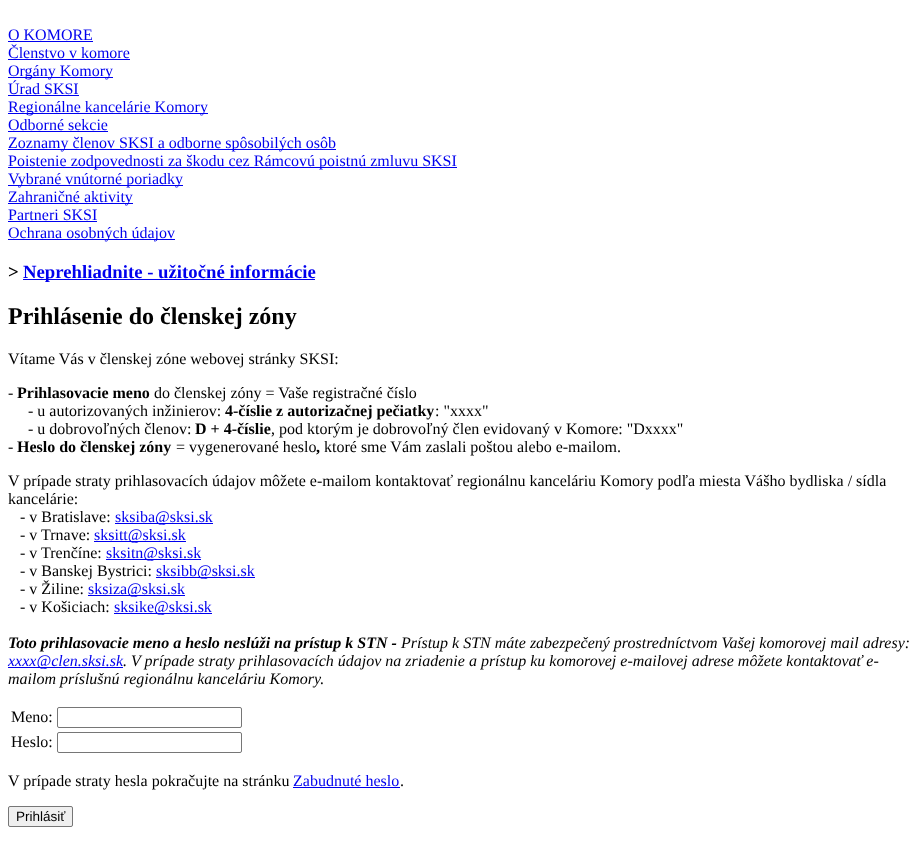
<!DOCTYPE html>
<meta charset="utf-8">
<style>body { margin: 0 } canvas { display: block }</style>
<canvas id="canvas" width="920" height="865"></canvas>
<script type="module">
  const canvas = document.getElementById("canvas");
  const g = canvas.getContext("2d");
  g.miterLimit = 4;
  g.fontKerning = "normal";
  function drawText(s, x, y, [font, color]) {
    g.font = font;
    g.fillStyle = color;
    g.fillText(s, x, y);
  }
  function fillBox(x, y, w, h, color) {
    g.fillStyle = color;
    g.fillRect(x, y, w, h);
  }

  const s1 = ["16px Liberation Serif", "#0000EE"];
  const s2 = ["bold 18.75px Liberation Serif", "#000000"];
  const s3 = ["bold 18.75px Liberation Serif", "#0000EE"];
  const s4 = ["bold 24px Liberation Serif", "#000000"];
  const s5 = ["16px Liberation Serif", "#000000"];
  const s6 = ["bold 16px Liberation Serif", "#000000"];
  const s7 = ["italic bold 16px Liberation Serif", "#000000"];
  const s8 = ["italic 16px Liberation Serif", "#000000"];
  const s9 = ["italic 16px Liberation Serif", "#0000EE"];
  const s10 = ["13.5px Liberation Sans", "#000000"];

  fillBox(0, 0, 920, 865, "#FFFFFF");
  drawText("O KOMORE", 8, 40, s1);
  fillBox(8, 41, 85, 1, "#0000EE");
  drawText("Členstvo v komore", 8, 58, s1);
  fillBox(8, 59, 122, 1, "#0000EE");
  fillBox(8, 77, 105, 1, "#0000EE");
  drawText("Orgány Komory", 8, 76, s1);
  drawText("Úrad SKSI", 8, 94, s1);
  fillBox(8, 95, 71, 1, "#0000EE");
  fillBox(8, 113, 200, 1, "#0000EE");
  drawText("Regionálne kancelárie Komory", 8, 112, s1);
  drawText("Odborné sekcie", 8, 130, s1);
  fillBox(8, 131, 100, 1, "#0000EE");
  fillBox(8, 149, 328, 1, "#0000EE");
  drawText("Zoznamy členov SKSI a odborne spôsobilých osôb", 8, 148, s1);
  fillBox(8, 167, 449, 1, "#0000EE");
  drawText("Poistenie zodpovednosti za škodu cez Rámcovú poistnú zmluvu SKSI", 8, 166, s1);
  fillBox(8, 185, 175, 1, "#0000EE");
  drawText("Vybrané vnútorné poriadky", 8, 184, s1);
  fillBox(8, 203, 125, 1, "#0000EE");
  drawText("Zahraničné aktivity", 8, 202, s1);
  drawText("Partneri SKSI", 8, 220, s1);
  fillBox(8, 221, 89, 1, "#0000EE");
  fillBox(8, 239, 167, 1, "#0000EE");
  drawText("Ochrana osobných údajov", 8, 238, s1);
  drawText(">", 8, 278, s2);
  fillBox(23, 279, 292, 1, "#0000EE");
  drawText("Neprehliadnite - užitočné informácie", 23, 278, s3);
  drawText("Prihlásenie do členskej zóny", 8, 324, s4);
  drawText("Vítame Vás v členskej zóne webovej stránky SKSI:", 8, 364, s5);
  drawText("-", 8, 398, s5);
  drawText("Prihlasovacie meno", 17, 398, s6);
  drawText("do členskej zóny = Vaše registračné číslo", 154, 398, s5);
  drawText("- u autorizovaných inžinierov:", 28, 416, s5);
  drawText("4-číslie z autorizačnej pečiatky", 225, 416, s6);
  drawText(": \"xxxx\"", 435, 416, s5);
  drawText("- u dobrovoľných členov:", 28, 434, s5);
  drawText("D + 4-číslie", 195, 434, s6);
  drawText(", pod ktorým je dobrovoľný člen evidovaný v Komore: \"Dxxxx\"", 271, 434, s5);
  drawText("-", 8, 452, s5);
  drawText("Heslo do členskej zóny", 17, 452, s6);
  drawText("= vygenerované heslo", 176, 452, s5);
  drawText("ktoré sme Vám zaslali poštou alebo e-mailom.", 324, 452, s5);
  drawText(",", 316, 452, s6);
  drawText("V prípade straty prihlasovacích údajov môžete e-mailom kontaktovať regionálnu kanceláriu Komory podľa miesta Vášho bydliska / sídla", 8, 486, s5);
  drawText("kancelárie:", 8, 504, s5);
  drawText("- v Bratislave:", 20, 522, s5);
  fillBox(115, 523, 98, 1, "#0000EE");
  drawText("sksiba@sksi.sk", 115, 522, s1);
  drawText("- v Trnave:", 20, 540, s5);
  fillBox(94, 541, 92, 1, "#0000EE");
  drawText("sksitt@sksi.sk", 94, 540, s1);
  drawText("- v Trenčíne:", 20, 558, s5);
  fillBox(106, 559, 95, 1, "#0000EE");
  drawText("sksitn@sksi.sk", 106, 558, s1);
  drawText("- v Banskej Bystrici:", 20, 576, s5);
  fillBox(156, 577, 99, 1, "#0000EE");
  drawText("sksibb@sksi.sk", 156, 576, s1);
  drawText("- v Žiline:", 20, 594, s5);
  fillBox(88, 595, 97, 1, "#0000EE");
  drawText("sksiza@sksi.sk", 88, 594, s1);
  drawText("- v Košiciach:", 20, 612, s5);
  fillBox(114, 613, 98, 1, "#0000EE");
  drawText("sksike@sksi.sk", 114, 612, s1);
  drawText("Toto prihlasovacie meno a heslo neslúži na prístup k STN -", 8, 648, s7);
  drawText("Prístup k STN máte zabezpečený prostredníctvom Vašej komorovej mail adresy:", 401, 648, s8);
  fillBox(8, 667, 115, 1, "#0000EE");
  drawText("xxxx@clen.sksi.sk", 8, 666, s9);
  drawText(". V prípade straty prihlasovacích údajov na zriadenie a prístup ku komorovej e-mailovej adrese môžete kontaktovať e-", 123, 666, s8);
  drawText("mailom príslušnú regionálnu kanceláriu Komory.", 8, 684, s8);
  drawText("Meno:", 11, 722, s5);
  g.beginPath();
  g.roundRect(57.5, 707.5, 184, 20, 1.5);
  g.strokeStyle = "#767676";
  g.stroke();
  drawText("Heslo:", 11, 747, s5);
  g.beginPath();
  g.roundRect(57.5, 732.5, 184, 20, 1.5);
  g.stroke();
  drawText("V prípade straty hesla pokračujte na stránku", 8, 786, s5);
  drawText("Zabudnuté heslo", 293, 786, s1);
  fillBox(293, 787, 107, 1, "#0000EE");
  drawText(".", 400, 786, s5);
  g.fillStyle = "#EFEFEF";
  g.beginPath();
  g.roundRect(8.5, 806.5, 64, 20, 1.5);
  g.fill();
  g.stroke();
  drawText("Prihlásiť", 16, 821, s10);
</script>
